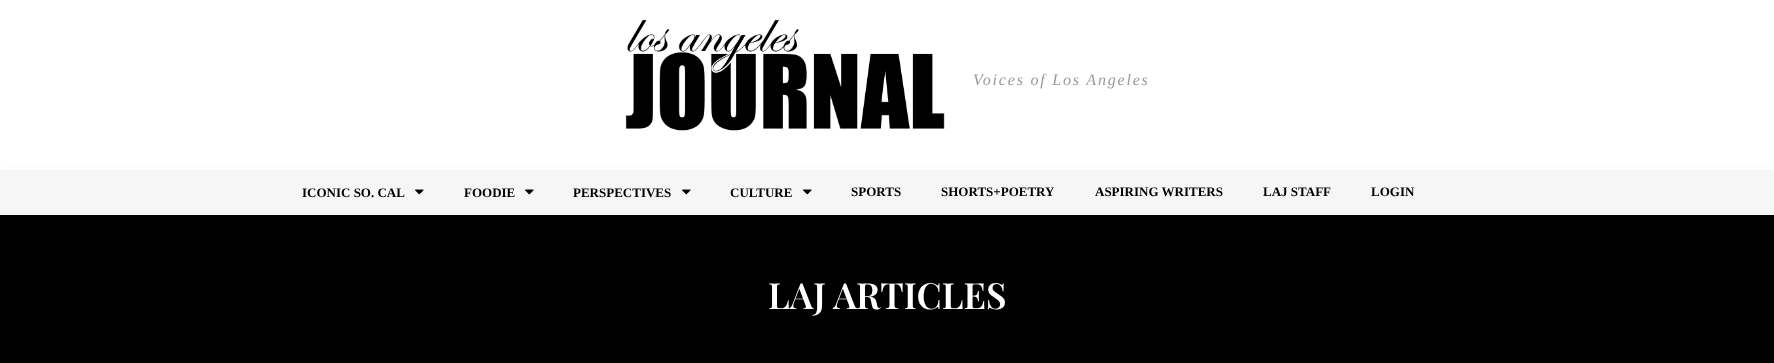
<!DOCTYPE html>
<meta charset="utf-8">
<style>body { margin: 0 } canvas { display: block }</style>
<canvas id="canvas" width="1774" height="363"></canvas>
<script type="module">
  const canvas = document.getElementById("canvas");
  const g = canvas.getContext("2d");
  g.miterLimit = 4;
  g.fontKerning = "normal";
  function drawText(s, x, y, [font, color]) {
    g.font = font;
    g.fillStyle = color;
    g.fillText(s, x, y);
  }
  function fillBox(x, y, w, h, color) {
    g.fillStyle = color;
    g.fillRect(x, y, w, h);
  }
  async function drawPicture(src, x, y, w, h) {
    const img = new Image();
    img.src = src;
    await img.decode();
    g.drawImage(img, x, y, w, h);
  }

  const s1 = ["italic 16px Liberation Serif", "#999999"];
  const s2 = ["bold 13px Liberation Serif", "#000000"];
  const s3 = ["600 36px Playfair Display", "#FFFFFF"];

  fillBox(0, 0, 1774, 363, "#FFFFFF");
  await drawPicture("pic1.png", 625, 19, 320, 112);
  g.letterSpacing = "1.8px";
  drawText("Voices of Los Angeles", 973, 85, s1);
  fillBox(0, 215, 1774, 148, "#000000");
  g.fillStyle = "rgba(0, 0, 0, 0.05)";
  g.filter = "blur(7.5px)";
  g.beginPath();
  g.rect(0, 175, 1774, 45);
  g.fill();
  g.filter = "none";
  fillBox(0, 170, 1774, 45, "#F6F6F6");
  g.letterSpacing = "0px";
  drawText("ICONIC SO. CAL", 302, 197, s2);
  await drawPicture("pic2.png", 415, 189, 9, 6);
  drawText("FOODIE", 464, 197, s2);
  await drawPicture("pic2.png", 525, 189, 9, 6);
  drawText("PERSPECTIVES", 573, 197, s2);
  await drawPicture("pic2.png", 682, 189, 9, 6);
  drawText("CULTURE", 730, 197, s2);
  await drawPicture("pic2.png", 803, 189, 9, 6);
  drawText("SPORTS", 851, 196, s2);
  drawText("SHORTS+POETRY", 941, 196, s2);
  drawText("ASPIRING WRITERS", 1095, 196, s2);
  drawText("LAJ STAFF", 1263, 196, s2);
  drawText("LOGIN", 1371, 196, s2);
  drawText("LAJ ARTICLES", 768, 309, s3);
</script>
